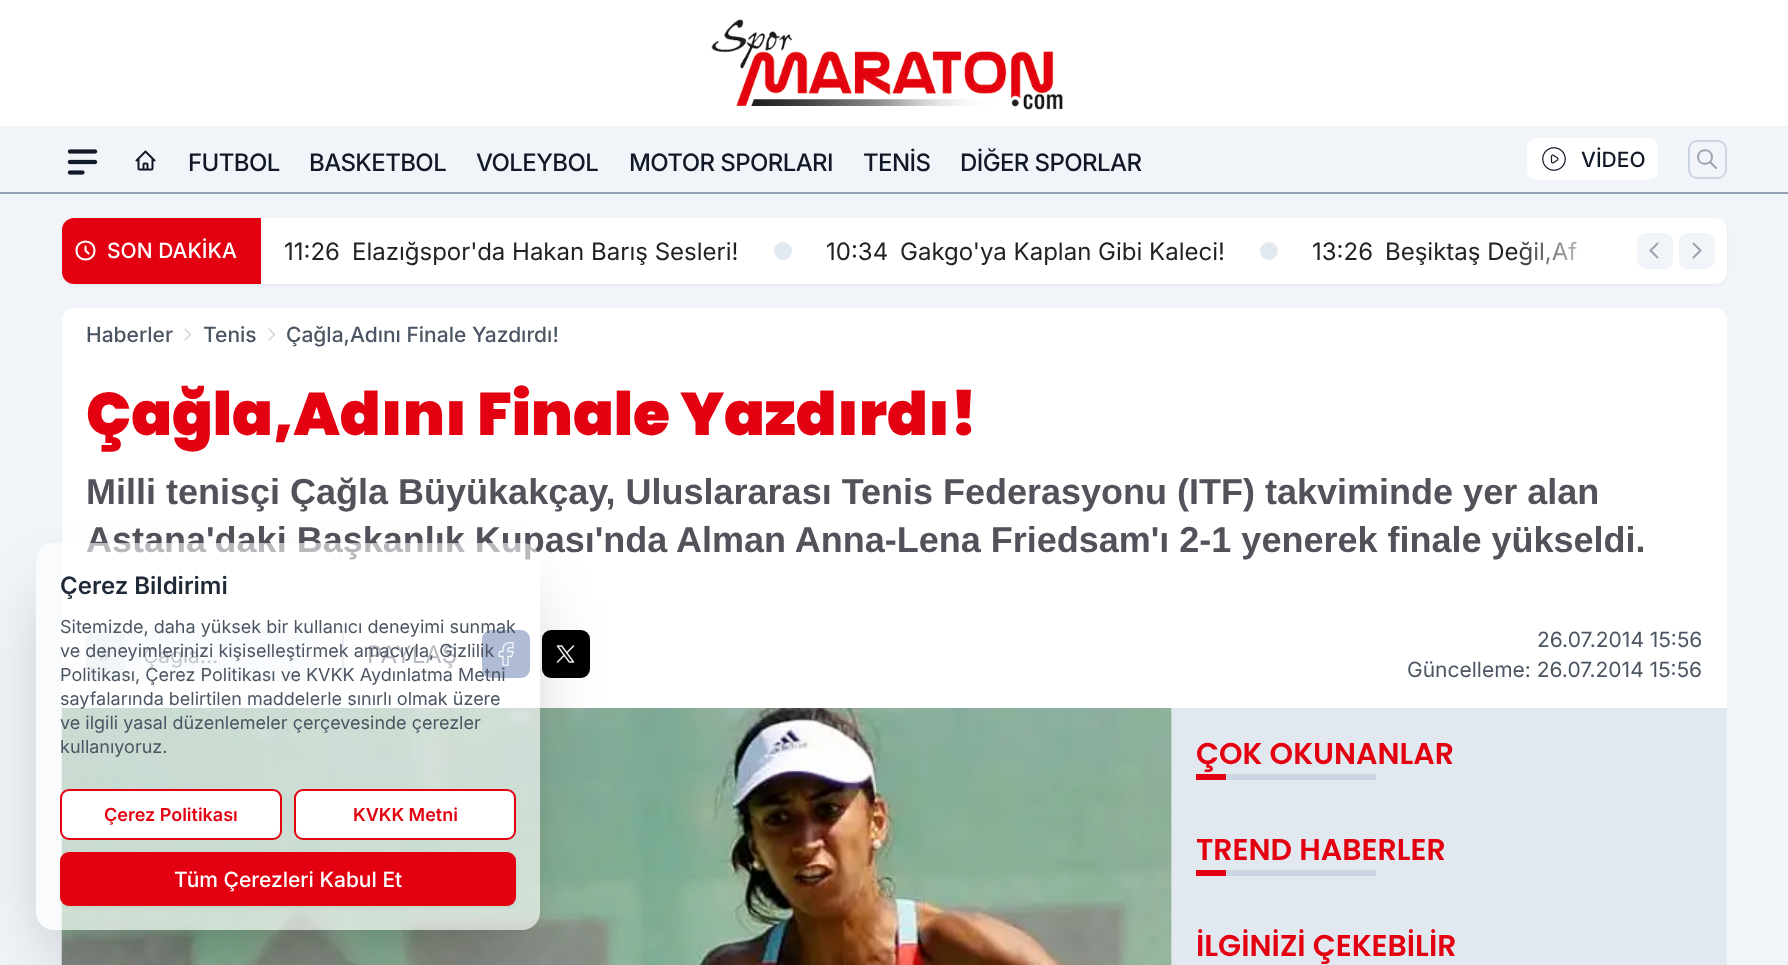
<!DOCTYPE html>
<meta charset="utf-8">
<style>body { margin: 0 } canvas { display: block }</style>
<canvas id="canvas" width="1788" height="965"></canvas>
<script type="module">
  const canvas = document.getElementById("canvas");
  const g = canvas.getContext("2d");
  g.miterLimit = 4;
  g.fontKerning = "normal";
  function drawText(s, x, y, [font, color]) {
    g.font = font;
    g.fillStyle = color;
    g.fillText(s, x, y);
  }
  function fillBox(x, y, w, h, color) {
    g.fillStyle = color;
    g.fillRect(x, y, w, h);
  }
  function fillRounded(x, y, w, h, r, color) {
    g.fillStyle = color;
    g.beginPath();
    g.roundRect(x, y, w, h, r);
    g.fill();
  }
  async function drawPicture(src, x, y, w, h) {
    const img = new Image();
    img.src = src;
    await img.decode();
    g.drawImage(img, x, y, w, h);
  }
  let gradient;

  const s1 = ["500 24px Inter", "#111827"];
  const s2 = ["500 21px Inter", "#111827"];
  const s3 = ["500 21px Inter", "#FFFFFF"];
  const s4 = ["24px Inter", "#222222"];
  const s5 = ["500 21px Inter", "#4B5563"];
  const s6 = ["900 60px Poppins", "#E30010"];
  const s7 = ["bold 36px Liberation Sans", "#52525B"];
  const s8 = ["21px Inter", "#6B7280"];
  const s9 = ["24px Inter", "#4B5563"];
  const s10 = ["21px Inter", "#4B5563"];
  const s11 = ["600 30px Poppins", "#E30010"];
  const s12 = ["600 24px Inter", "#1F2937"];
  const s13 = ["18px Inter", "#4B5563"];
  const s14 = ["600 18px Inter", "#E30010"];

  fillBox(0, 0, 1788, 965, "#F1F5F9");
  fillBox(0, 0, 1788, 126, "#FFFFFF");
  await drawPicture("pic1.png", 711, 19, 352, 91);
  fillBox(0, 192, 1788, 2, "#94A3B8");
  await drawPicture("pic2.png", 67, 149, 31, 26);
  await drawPicture("pic3.png", 135, 150, 21, 21);
  g.letterSpacing = "-0.6px";
  drawText("FUTBOL", 188, 171, s1);
  drawText("BASKETBOL", 309, 171, s1);
  drawText("VOLEYBOL", 476, 171, s1);
  drawText("MOTOR SPORLARI", 629, 171, s1);
  drawText("TENİS", 863, 171, s1);
  drawText("DİĞER SPORLAR", 960, 171, s1);
  fillRounded(1527, 138, 131, 42, 9, "#FFFFFF");
  await drawPicture("pic4.png", 1542, 147, 24, 24);
  g.letterSpacing = "0px";
  drawText("VİDEO", 1581, 167, s2);
  g.beginPath();
  g.roundRect(1689, 141, 37, 37, 8);
  g.strokeStyle = "#CBD5E1";
  g.lineWidth = 2;
  g.stroke();
  g.beginPath();
  g.moveTo(1716, 168);
  g.lineTo(1710, 162);
  g.moveTo(1712, 157);
  g.bezierCurveTo(1712, 166, 1698, 166, 1698, 157);
  g.bezierCurveTo(1698, 148, 1712, 148, 1712, 157);
  g.closePath();
  g.strokeStyle = "#9CA3AF";
  g.lineCap = "round";
  g.lineJoin = "round";
  g.stroke();
  g.fillStyle = "rgba(0, 0, 0, 0.05)";
  g.filter = "blur(1.5px)";
  g.beginPath();
  g.roundRect(62, 219, 1665, 66, 12);
  g.fill();
  g.filter = "none";
  fillRounded(62, 218, 1665, 66, 12, "#FFFFFF");
  g.fillStyle = "#E30010";
  g.beginPath();
  g.roundRect(62, 218, 199, 66, [12, 0, 0, 12]);
  g.fill();
  g.beginPath();
  g.moveTo(85.5, 246.5);
  g.lineTo(85.5, 250.5);
  g.lineTo(88.5, 253.5);
  g.moveTo(94.5, 250.5);
  g.bezierCurveTo(94.5, 262.5, 76.5, 262.5, 76.5, 250.5);
  g.bezierCurveTo(76.5, 238.5, 94.5, 238.5, 94.5, 250.5);
  g.closePath();
  g.strokeStyle = "#FFFFFF";
  g.stroke();
  drawText("SON DAKİKA", 107, 258, s3);
  drawText("11:26", 284, 260, s4);
  drawText("Elazığspor'da Hakan Barış Sesleri!", 352, 260, s4);
  g.fillStyle = "#E2E8F0";
  g.beginPath();
  g.arc(783, 251, 9, 0, Math.PI * 2);
  g.fill();
  drawText("10:34", 826, 260, s4);
  drawText("Gakgo'ya Kaplan Gibi Kaleci!", 900, 260, s4);
  g.fillStyle = "#E2E8F0";
  g.beginPath();
  g.arc(1269, 251, 9, 0, Math.PI * 2);
  g.fill();
  drawText("13:26", 1312, 260, s4);
  drawText("Beşiktaş Değil,Af", 1385, 260, s4);
  gradient = g.createLinearGradient(1608, 266, 1512, 266);
  gradient.addColorStop(0, "#FFFFFF");
  gradient.addColorStop(1, "rgba(255, 255, 255, 0)");
  g.fillStyle = gradient;
  g.fillRect(1514, 241, 63, 25);
  fillRounded(1637, 233, 36, 36, 9, "#F1F5F9");
  fillRounded(1679, 233, 36, 36, 9, "#F1F5F9");
  g.beginPath();
  g.moveTo(1657.5, 257.5);
  g.lineTo(1650.5, 250.5);
  g.lineTo(1657.5, 243.5);
  g.moveTo(1693.5, 243.5);
  g.lineTo(1700.5, 250.5);
  g.lineTo(1693.5, 257.5);
  g.strokeStyle = "#9CA3AF";
  g.stroke();
  fillRounded(62, 308, 1665, 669, 12, "#FFFFFF");
  drawText("Haberler", 86, 342, s5);
  g.beginPath();
  g.moveTo(185, 329);
  g.lineTo(190.5, 334.5);
  g.lineTo(185, 340);
  g.strokeStyle = "#D1D5DB";
  g.lineWidth = 1.5;
  g.stroke();
  drawText("Tenis", 203, 342, s5);
  g.beginPath();
  g.moveTo(269, 329);
  g.lineTo(274.5, 334.5);
  g.lineTo(269, 340);
  g.stroke();
  drawText("Çağla,Adını Finale Yazdırdı!", 286, 342, s5);
  drawText("Çağla,Adını Finale Yazdırdı!", 86, 435, s6);
  drawText("Milli tenisçi Çağla Büyükakçay, Uluslararası Tenis Federasyonu (ITF) takviminde yer alan", 86, 504, s7);
  drawText("Astana'daki Başkanlık Kupası'nda Alman Anna-Lena Friedsam'ı 2-1 yenerek finale yükseldi.", 86, 552, s7);
  fillBox(342, 630, 2, 48, "#CBD5E1");
  g.fillStyle = "rgba(0, 0, 0, 0.05)";
  g.filter = "blur(1.5px)";
  g.beginPath();
  g.roundRect(86, 632, 232, 48, 12);
  g.fill();
  g.filter = "none";
  fillRounded(86, 630, 232, 48, 12, "#F1F5F9");
  g.fillStyle = "#E2E8F0";
  g.beginPath();
  g.roundRect(86, 630, 39, 48, [12, 0, 0, 12]);
  g.fill();
  await drawPicture("pic5.png", 98, 647, 14, 14);
  drawText("Çağla…", 143, 663, s8);
  drawText("PAYLAŞ", 367, 663, s9);
  fillRounded(482, 630, 48, 48, 9, "#3B5998");
  await drawPicture("pic6.png", 498, 642, 16, 24);
  fillRounded(542, 630, 48, 48, 9, "#000000");
  await drawPicture("pic7.png", 556, 645, 19, 18);
  drawText("26.07.2014 15:56", 1537, 647, s10);
  drawText("Güncelleme: 26.07.2014 15:56", 1407, 677, s10);
  await drawPicture("pic8.png", 61, 708, 1111, 257);
  fillBox(1172, 708, 555, 257, "#E2E8F0");
  drawText("ÇOK OKUNANLAR", 1196, 764, s11);
  fillBox(1196, 774, 30, 6, "#E30010");
  fillBox(1226, 774, 150, 6, "#CBD5E1");
  drawText("TREND HABERLER", 1196, 860, s11);
  fillBox(1196, 870, 30, 6, "#E30010");
  fillBox(1226, 870, 150, 6, "#CBD5E1");
  drawText("İLGİNİZİ ÇEKEBİLİR", 1196, 956, s11);
  g.save();
  g.beginPath();
  g.moveTo(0, 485);
  g.lineTo(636, 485);
  g.lineTo(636, 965);
  g.lineTo(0, 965);
  g.closePath();
  g.moveTo(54, 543);
  g.lineTo(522, 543);
  g.bezierCurveTo(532, 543, 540, 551, 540, 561);
  g.lineTo(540, 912);
  g.bezierCurveTo(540, 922, 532, 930, 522, 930);
  g.lineTo(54, 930);
  g.bezierCurveTo(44, 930, 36, 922, 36, 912);
  g.lineTo(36, 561);
  g.bezierCurveTo(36, 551, 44, 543, 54, 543);
  g.closePath();
  g.clip("evenodd");
  g.fillStyle = "rgba(0, 0, 0, 0.25)";
  g.filter = "blur(37.5px)";
  g.beginPath();
  g.rect(54, 599, 468, 351);
  g.fill();
  g.filter = "none";
  g.restore();
  fillRounded(36, 543, 504, 387, 18, "rgba(255, 255, 255, 0.6)");
  drawText("Çerez Bildirimi", 60, 594, s12);
  drawText("Sitemizde, daha yüksek bir kullanıcı deneyimi sunmak", 60, 633, s13);
  drawText("ve deneyimlerinizi kişiselleştirmek amacıyla, Gizlilik", 60, 657, s13);
  drawText("Politikası, Çerez Politikası ve KVKK Aydınlatma Metni", 60, 681, s13);
  drawText("sayfalarında belirtilen maddelerle sınırlı olmak üzere", 60, 705, s13);
  drawText("ve ilgili yasal düzenlemeler çerçevesinde çerezler", 60, 729, s13);
  drawText("kullanıyoruz.", 60, 753, s13);
  g.fillStyle = "#FFFFFF";
  g.beginPath();
  g.roundRect(61, 790, 220, 49, 8);
  g.fill();
  g.strokeStyle = "#E30010";
  g.lineWidth = 2;
  g.lineJoin = "miter";
  g.stroke();
  drawText("Çerez Politikası", 104, 821, s14);
  g.fillStyle = "#FFFFFF";
  g.beginPath();
  g.roundRect(295, 790, 220, 49, 8);
  g.fill();
  g.stroke();
  drawText("KVKK Metni", 353, 821, s14);
  g.fillStyle = "rgba(0, 0, 0, 0.05)";
  g.filter = "blur(1.5px)";
  g.beginPath();
  g.roundRect(60, 854, 456, 54, 9);
  g.fill();
  g.filter = "none";
  fillRounded(60, 852, 456, 54, 9, "#E30010");
  drawText("Tüm Çerezleri Kabul Et", 174, 887, s3);
</script>
